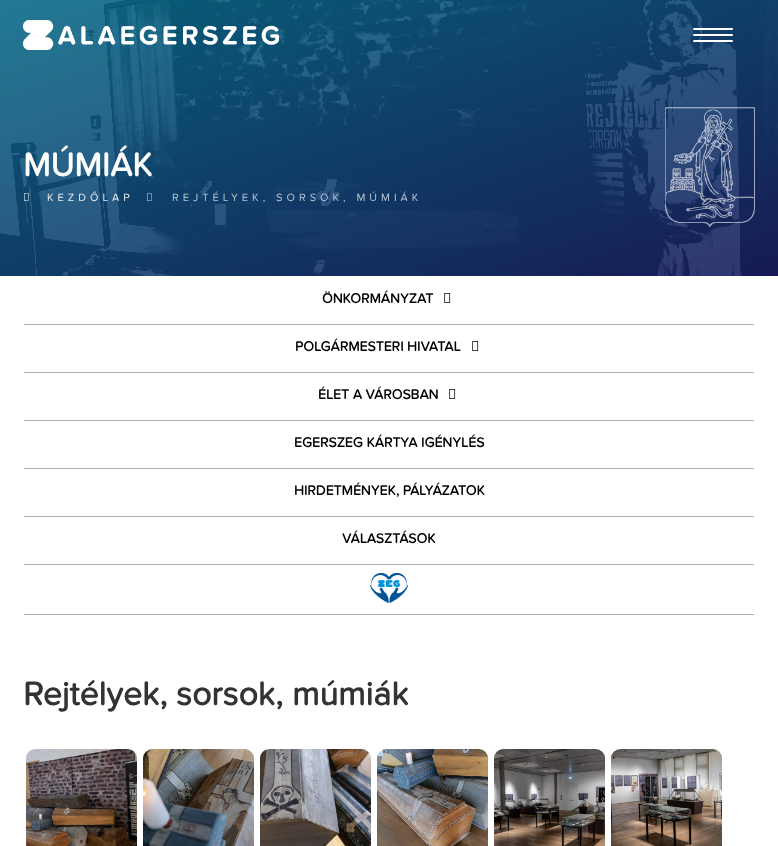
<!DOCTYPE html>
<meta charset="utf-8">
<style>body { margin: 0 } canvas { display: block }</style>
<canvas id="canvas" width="778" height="846"></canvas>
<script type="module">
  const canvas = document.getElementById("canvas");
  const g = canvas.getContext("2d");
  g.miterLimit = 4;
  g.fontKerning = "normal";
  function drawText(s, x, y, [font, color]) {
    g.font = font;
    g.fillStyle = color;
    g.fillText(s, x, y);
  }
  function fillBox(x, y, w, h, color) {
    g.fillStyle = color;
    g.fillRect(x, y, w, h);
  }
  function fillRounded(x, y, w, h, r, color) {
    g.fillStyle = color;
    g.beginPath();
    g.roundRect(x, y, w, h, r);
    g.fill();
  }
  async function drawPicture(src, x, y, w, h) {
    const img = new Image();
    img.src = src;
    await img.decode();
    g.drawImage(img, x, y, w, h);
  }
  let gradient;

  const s1 = ["bold 34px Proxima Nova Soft", "#FDFDFD"];
  const s2 = ["11px Proxima Nova Soft", "#E9EEF2"];
  const s3 = ["11px Proxima Nova Soft", "#B8C5D2"];
  const s4 = ["bold 14px Proxima Nova Soft", "#000000"];
  const s5 = ["bold 34px Proxima Nova Soft", "#333333"];

  fillBox(0, 0, 778, 846, "#FFFFFF");
  gradient = g.createLinearGradient(305, -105, 473, 381);
  gradient.addColorStop(0, "#096B89");
  gradient.addColorStop(1, "#1A1E5E");
  g.fillStyle = gradient;
  g.fillRect(0, 0, 778, 276);
  await drawPicture("pic2.png", 0, 0, 778, 276);
  await drawPicture("pic1.png", 23, 20, 256, 30);
  fillRounded(693, 28, 40, 2, 1, "#FFFFFF");
  fillRounded(693, 34, 40, 2, 1, "#FFFFFF");
  fillRounded(693, 40, 40, 2, 1, "#FFFFFF");
  drawText("MÚMIÁK", 23, 176, s1);
  await drawPicture("pic3.png", 665, 107, 90, 121);
  await drawPicture("pic4.png", 24, 193, 5, 8);
  g.letterSpacing = "4px";
  drawText("KEZDŐLAP", 47, 201, s2);
  await drawPicture("pic5.png", 147, 193, 5, 8);
  drawText("REJTÉLYEK, SORSOK, MÚMIÁK", 172, 201, s3);
  fillBox(24, 324, 730, 1, "#B3B3B3");
  g.letterSpacing = "0px";
  drawText("ÖNKORMÁNYZAT", 322, 303, s4);
  await drawPicture("pic6.png", 444, 293, 7, 10);
  fillBox(24, 372, 730, 1, "#B3B3B3");
  drawText("POLGÁRMESTERI HIVATAL", 295, 351, s4);
  await drawPicture("pic6.png", 472, 341, 7, 10);
  fillBox(24, 420, 730, 1, "#B3B3B3");
  drawText("ÉLET A VÁROSBAN", 318, 399, s4);
  await drawPicture("pic6.png", 449, 389, 7, 10);
  fillBox(24, 468, 730, 1, "#B3B3B3");
  drawText("EGERSZEG KÁRTYA IGÉNYLÉS", 294, 447, s4);
  fillBox(24, 516, 730, 1, "#B3B3B3");
  drawText("HIRDETMÉNYEK, PÁLYÁZATOK", 294, 495, s4);
  fillBox(24, 564, 730, 1, "#B3B3B3");
  drawText("VÁLASZTÁSOK", 342, 543, s4);
  fillBox(24, 614, 730, 1, "#ADADAD");
  await drawPicture("pic7.png", 370, 573, 38, 30);
  drawText("Rejtélyek, sorsok, múmiák", 23, 705, s5);
  await drawPicture("pic8.png", 26, 749, 111, 97);
  await drawPicture("pic9.png", 143, 749, 111, 97);
  await drawPicture("pic10.png", 260, 749, 111, 97);
  await drawPicture("pic11.png", 377, 749, 111, 97);
  await drawPicture("pic12.png", 494, 749, 111, 97);
  await drawPicture("pic13.png", 611, 749, 111, 97);
</script>
